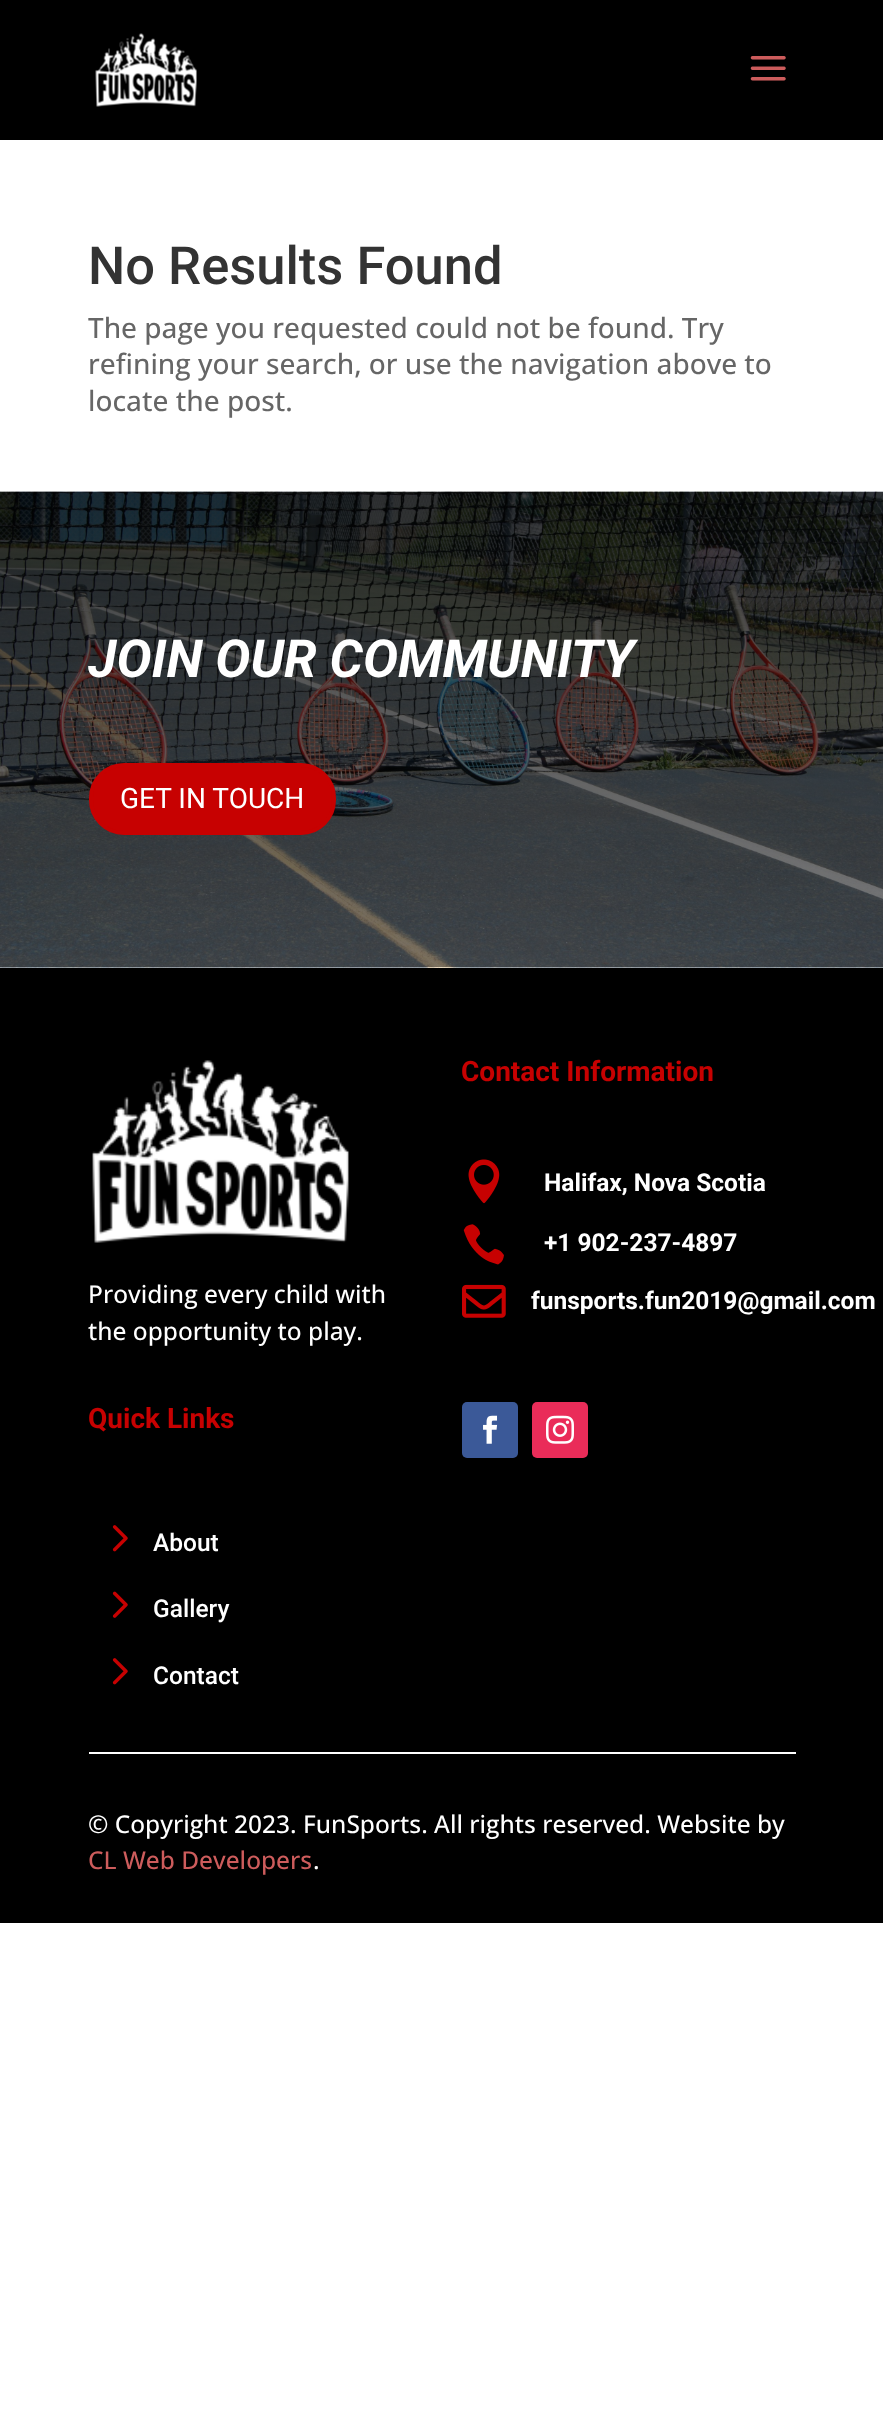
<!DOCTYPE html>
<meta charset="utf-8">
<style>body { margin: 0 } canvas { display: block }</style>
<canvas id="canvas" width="883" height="2413"></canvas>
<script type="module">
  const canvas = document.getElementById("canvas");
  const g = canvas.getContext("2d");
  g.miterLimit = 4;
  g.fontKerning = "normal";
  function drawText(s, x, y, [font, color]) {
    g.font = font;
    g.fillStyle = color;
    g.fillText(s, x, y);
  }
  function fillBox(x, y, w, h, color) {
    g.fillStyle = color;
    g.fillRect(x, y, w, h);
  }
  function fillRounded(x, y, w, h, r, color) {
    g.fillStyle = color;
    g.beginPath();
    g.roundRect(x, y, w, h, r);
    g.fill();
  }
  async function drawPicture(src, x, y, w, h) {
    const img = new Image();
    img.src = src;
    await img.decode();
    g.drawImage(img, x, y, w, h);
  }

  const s1 = ["500 52.5px Roboto", "#333333"];
  const s2 = ["500 28px Open Sans", "#666666"];
  const s3 = ["italic bold 52.5px Roboto", "#FFFFFF"];
  const s4 = ["28px Roboto", "#FFFFFF"];
  const s5 = ["500 24.5px Open Sans", "#FFFFFF"];
  const s6 = ["bold 28px Roboto", "#C70101"];
  const s7 = ["bold 24.5px Roboto", "#FFFFFF"];
  const s8 = ["500 24.5px Roboto", "#FFFFFF"];
  const s9 = ["500 24.5px Open Sans", "#CD5C5C"];

  fillBox(0, 0, 883, 2413, "#FFFFFF");
  fillBox(0, 0, 883, 140, "#000000");
  await drawPicture("pic1.png", 95, 33, 102, 74);
  await drawPicture("pic2.png", 750, 56, 36, 25);
  drawText("No Results Found", 88, 284, s1);
  drawText("The page you requested could not be found. Try", 88, 338, s2);
  drawText("refining your search, or use the navigation above to", 88, 374, s2);
  drawText("locate the post.", 88, 411, s2);
  await drawPicture("pic3.png", 0, 491, 883, 477);
  drawText("JOIN OUR COMMUNITY", 88, 677, s3);
  g.fillStyle = "#C70101";
  g.beginPath();
  g.roundRect(91, 765, 243, 68, 33);
  g.fill();
  g.strokeStyle = "#C70101";
  g.lineWidth = 4;
  g.stroke();
  drawText("GET IN TOUCH", 120, 808, s4);
  fillBox(0, 968, 883, 955, "#000000");
  await drawPicture("pic4.png", 92, 1060, 257, 183);
  drawText("Providing every child with", 88, 1303, s5);
  drawText("the opportunity to play.", 88, 1340, s5);
  drawText("Contact Information", 461, 1081, s6);
  await drawPicture("pic5.png", 468, 1159, 32, 45);
  drawText("Halifax, Nova Scotia", 544, 1191, s7);
  await drawPicture("pic6.png", 463, 1224, 41, 41);
  drawText("+1 902-237-4897", 544, 1251, s7);
  await drawPicture("pic7.png", 462, 1284, 44, 34);
  drawText("funsports.fun2019@gmail.com", 531, 1309, s7);
  drawText("Quick Links", 88, 1428, s6);
  await drawPicture("pic8.png", 112, 1525, 16, 27);
  drawText("About", 153, 1551, s8);
  await drawPicture("pic9.png", 112, 1591, 16, 27);
  drawText("Gallery", 153, 1617, s8);
  await drawPicture("pic8.png", 112, 1658, 16, 27);
  drawText("Contact", 153, 1684, s8);
  fillRounded(462, 1402, 56, 56, 5, "#3B5998");
  await drawPicture("pic10.png", 483, 1415, 15, 29);
  fillRounded(532, 1402, 56, 56, 5, "#EA2C59");
  await drawPicture("pic11.png", 546, 1415, 28, 29);
  fillBox(89, 1752, 707, 2, "#FFFFFF");
  drawText("© Copyright 2023. FunSports. All rights reserved. Website by", 88, 1833, s5);
  drawText("CL Web Developers", 88, 1869, s9);
  drawText(".", 313, 1869, s5);
</script>
